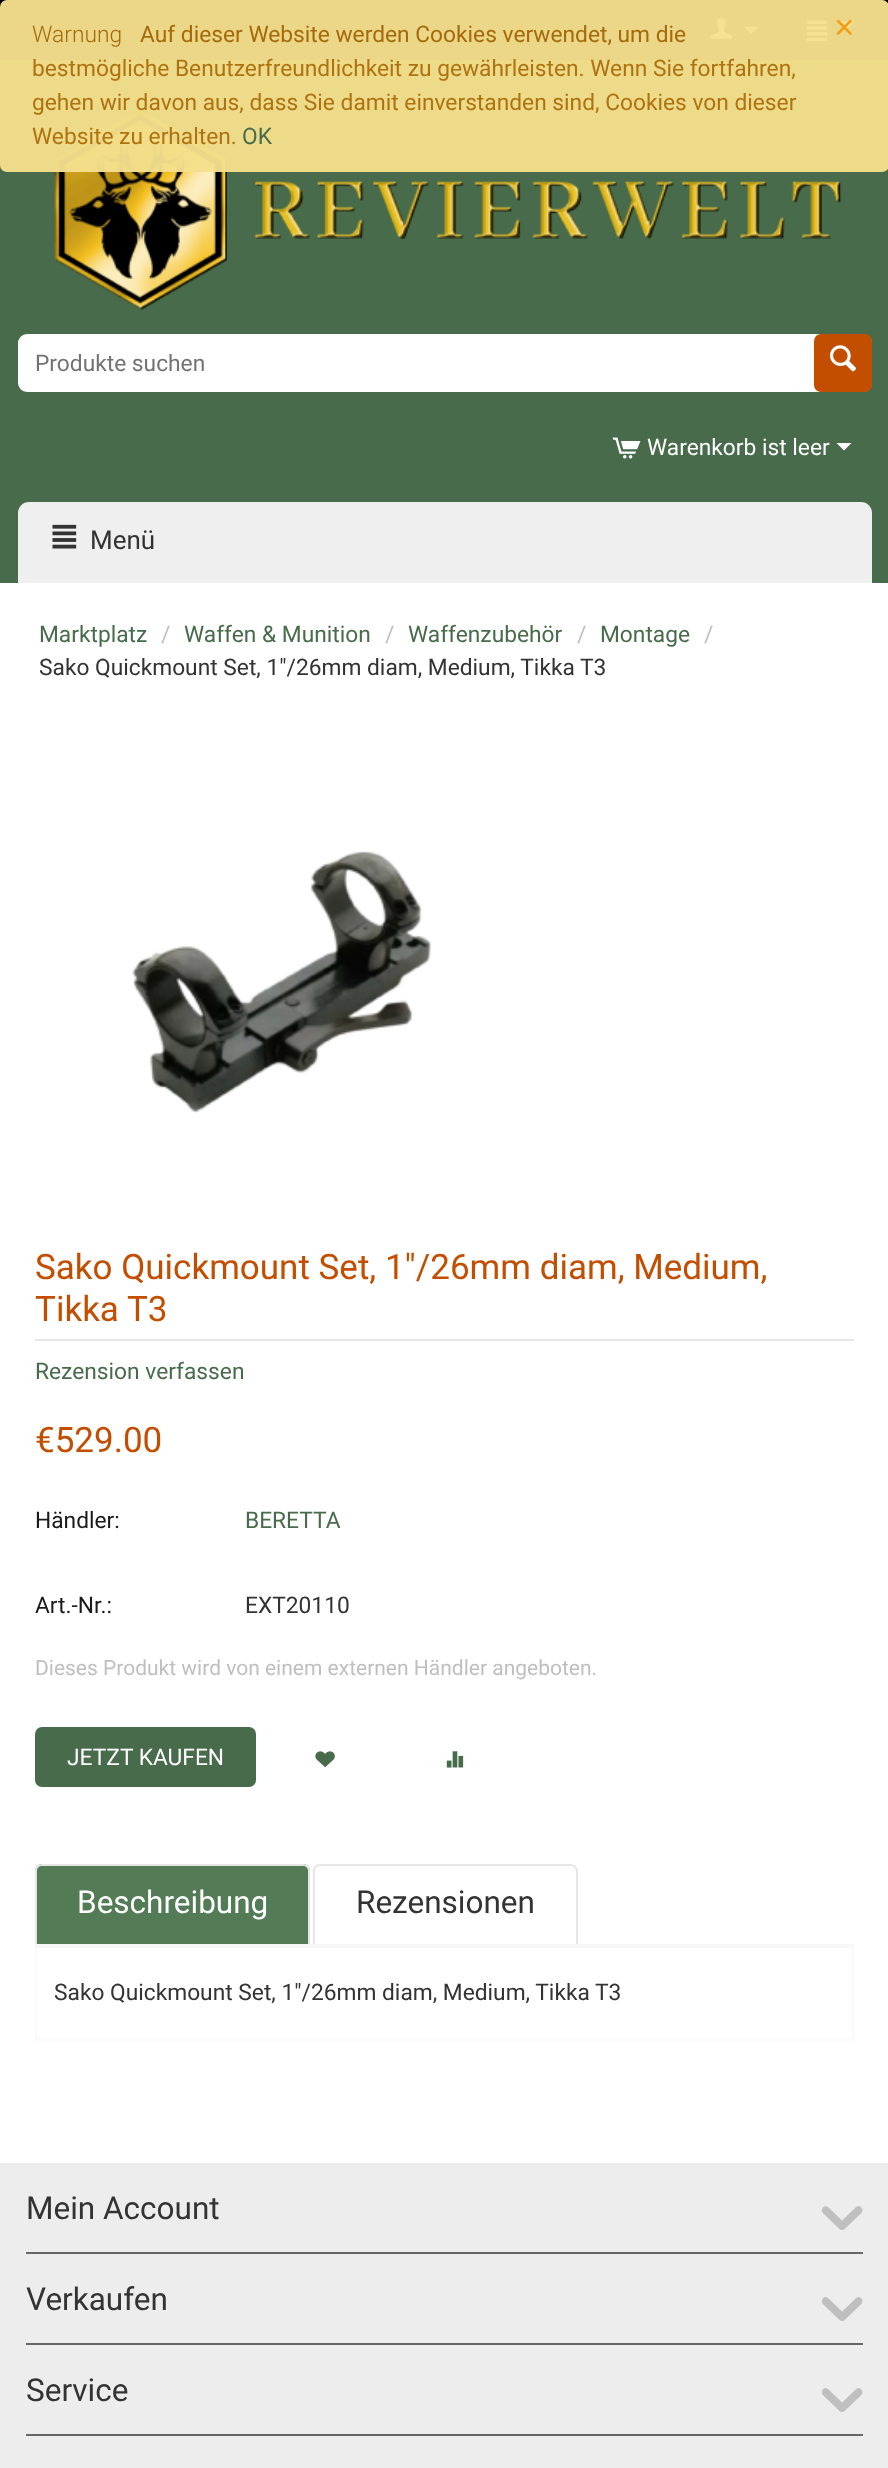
<!DOCTYPE html>
<meta charset="utf-8">
<style>body { margin: 0 } canvas { display: block }</style>
<canvas id="canvas" width="888" height="2468"></canvas>
<script type="module">
  const canvas = document.getElementById("canvas");
  const g = canvas.getContext("2d");
  g.miterLimit = 4;
  g.fontKerning = "normal";
  function drawText(s, x, y, [font, color]) {
    g.font = font;
    g.fillStyle = color;
    g.fillText(s, x, y);
  }
  function fillBox(x, y, w, h, color) {
    g.fillStyle = color;
    g.fillRect(x, y, w, h);
  }
  function fillRounded(x, y, w, h, r, color) {
    g.fillStyle = color;
    g.beginPath();
    g.roundRect(x, y, w, h, r);
    g.fill();
  }
  async function drawPicture(src, x, y, w, h) {
    const img = new Image();
    img.src = src;
    await img.decode();
    g.drawImage(img, x, y, w, h);
  }

  const s1 = ["300 22.75px Roboto", "#A56A0B"];
  const s2 = ["22.75px Roboto", "#A56A0B"];
  const s3 = ["35px Liberation Sans", "#F39E17"];
  const s4 = ["22.75px Roboto", "#AF7210"];
  const s5 = ["22.75px Roboto", "#486C4B"];
  const s6 = ["22.75px Roboto", "#737373"];
  const s7 = ["22.75px Roboto", "#FFFFFF"];
  const s8 = ["26px Roboto", "#333333"];
  const s9 = ["22.75px Roboto", "#BFBFBF"];
  const s10 = ["22.75px Roboto", "#333333"];
  const s11 = ["35px Roboto", "#C44E00"];
  const s12 = ["22.75px Roboto", "#1A1A1A"];
  const s13 = ["21px Roboto", "#BFBFBF"];
  const s14 = ["31.5px Roboto", "#FFFFFF"];
  const s15 = ["31.5px Roboto", "#333333"];

  fillBox(0, 0, 888, 2468, "#FFFFFF");
  fillBox(0, 0, 888, 60, "#000000");
  await drawPicture("pic1.png", 710, 18, 23, 21);
  g.fillStyle = "#FFFFFF";
  g.beginPath();
  g.moveTo(751, 34);
  g.lineTo(744, 26.5);
  g.lineTo(758.5, 26.5);
  g.closePath();
  g.fill();
  await drawPicture("pic2.png", 806, 20, 22, 22);
  g.beginPath();
  g.moveTo(847.5, 28.5);
  g.lineTo(840, 21);
  g.lineTo(855, 21);
  g.closePath();
  g.fill();
  fillBox(0, 60, 888, 523, "#486C4B");
  await drawPicture("pic3.png", 54, 109, 788, 202);
  fillRounded(0, 0, 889, 172, 7, "rgba(245, 224, 140, 0.96)");
  drawText("Warnung", 32, 42, s1);
  drawText("Auf dieser Website werden Cookies verwendet, um die", 140, 42, s2);
  drawText("×", 834, 39, s3);
  drawText("bestmögliche Benutzerfreundlichkeit zu gewährleisten. Wenn Sie fortfahren,", 32, 76, s4);
  drawText("gehen wir davon aus, dass Sie damit einverstanden sind, Cookies von dieser", 32, 110, s4);
  drawText("Website zu erhalten.", 32, 144, s4);
  drawText("OK", 242, 144, s5);
  fillRounded(18, 334, 854, 58, 9, "#FFFFFF");
  drawText("Produkte suchen", 35, 371, s6);
  fillRounded(814, 334, 58, 58, 7, "#C44E00");
  await drawPicture("pic4.png", 830, 345, 27, 27);
  await drawPicture("pic5.png", 612, 437, 29, 22);
  drawText("Warenkorb ist leer", 647, 455, s7);
  g.beginPath();
  g.moveTo(844, 450.5);
  g.lineTo(836.5, 443);
  g.lineTo(851.5, 443);
  g.closePath();
  g.fill();
  g.fillStyle = "#EFEFEF";
  g.beginPath();
  g.roundRect(18, 502, 854, 81, [11, 11, 0, 0]);
  g.fill();
  await drawPicture("pic6.png", 52, 524, 25, 25);
  drawText("Menü", 90, 549, s8);
  drawText("Marktplatz", 39, 642, s5);
  drawText("/", 161, 642, s9);
  drawText("Waffen & Munition", 184, 642, s5);
  drawText("/", 385, 642, s9);
  drawText("Waffenzubehör", 408, 642, s5);
  drawText("/", 577, 642, s9);
  drawText("Montage", 600, 642, s5);
  drawText("/", 704, 642, s9);
  drawText("Sako Quickmount Set, 1\"/26mm diam, Medium, Tikka T3", 39, 675, s10);
  await drawPicture("pic7.png", 132, 851, 299, 262);
  fillBox(35, 1339, 819, 2, "#E6E6E6");
  drawText("Sako Quickmount Set, 1\"/26mm diam, Medium,", 35, 1279, s11);
  drawText("Tikka T3", 35, 1321, s11);
  drawText("Rezension verfassen", 35, 1379, s5);
  drawText("€529.00", 35, 1452, s11);
  drawText("Händler:", 35, 1528, s12);
  drawText("BERETTA", 245, 1528, s5);
  drawText("Art.-Nr.:", 35, 1613, s12);
  drawText("EXT20110", 245, 1613, s10);
  drawText("Dieses Produkt wird von einem externen Händler angeboten.", 35, 1675, s13);
  fillRounded(35, 1727, 221, 60, 7, "#486C4B");
  drawText("JETZT KAUFEN", 67, 1765, s7);
  await drawPicture("pic8.png", 315, 1751, 20, 17);
  await drawPicture("pic9.png", 446, 1751, 18, 17);
  fillBox(35, 1944, 819, 4, "#F7F7F7");
  g.fillStyle = "#527B56";
  g.beginPath();
  g.roundRect(35, 1864, 275, 80, [7, 7, 0, 0]);
  g.fill();
  g.fillStyle = "#E6E6E6";
  g.beginPath();
  g.moveTo(42, 1864);
  g.lineTo(303, 1864);
  g.bezierCurveTo(307, 1864, 310, 1867, 310, 1871);
  g.lineTo(310, 1944);
  g.lineTo(35, 1944);
  g.lineTo(35, 1871);
  g.bezierCurveTo(35, 1867, 38, 1864, 42, 1864);
  g.closePath();
  g.moveTo(42, 1866);
  g.lineTo(303, 1866);
  g.bezierCurveTo(306, 1866, 308, 1868, 308, 1871);
  g.lineTo(308, 1944);
  g.lineTo(37, 1944);
  g.lineTo(37, 1871);
  g.bezierCurveTo(37, 1868, 39, 1866, 42, 1866);
  g.closePath();
  g.fill("evenodd");
  drawText("Beschreibung", 77, 1913, s14);
  g.fillStyle = "#E6E6E6";
  g.beginPath();
  g.moveTo(320, 1864);
  g.lineTo(570, 1864);
  g.bezierCurveTo(574, 1864, 578, 1867, 578, 1871);
  g.lineTo(578, 1944);
  g.lineTo(313, 1944);
  g.lineTo(313, 1871);
  g.bezierCurveTo(313, 1867, 316, 1864, 320, 1864);
  g.closePath();
  g.moveTo(320, 1866);
  g.lineTo(570, 1866);
  g.bezierCurveTo(573, 1866, 576, 1868, 576, 1871);
  g.lineTo(576, 1944);
  g.lineTo(315, 1944);
  g.lineTo(315, 1871);
  g.bezierCurveTo(315, 1868, 317, 1866, 320, 1866);
  g.closePath();
  g.fill("evenodd");
  drawText("Rezensionen", 356, 1913, s15);
  fillBox(852, 1948, 2, 93, "#FAFAFA");
  fillBox(35, 2039, 819, 2, "#FAFAFA");
  fillBox(35, 1948, 2, 93, "#FAFAFA");
  drawText("Sako Quickmount Set, 1\"/26mm diam, Medium, Tikka T3", 54, 2000, s10);
  fillBox(0, 2163, 888, 305, "#EEEDED");
  fillBox(26, 2252, 837, 2, "#666666");
  drawText("Mein Account", 26, 2219, s15);
  await drawPicture("pic10.png", 821, 2206, 42, 24);
  fillBox(26, 2343, 837, 2, "#666666");
  drawText("Verkaufen", 26, 2310, s15);
  await drawPicture("pic10.png", 821, 2297, 42, 24);
  fillBox(26, 2434, 837, 2, "#666666");
  drawText("Service", 26, 2401, s15);
  await drawPicture("pic10.png", 821, 2388, 42, 24);
</script>
